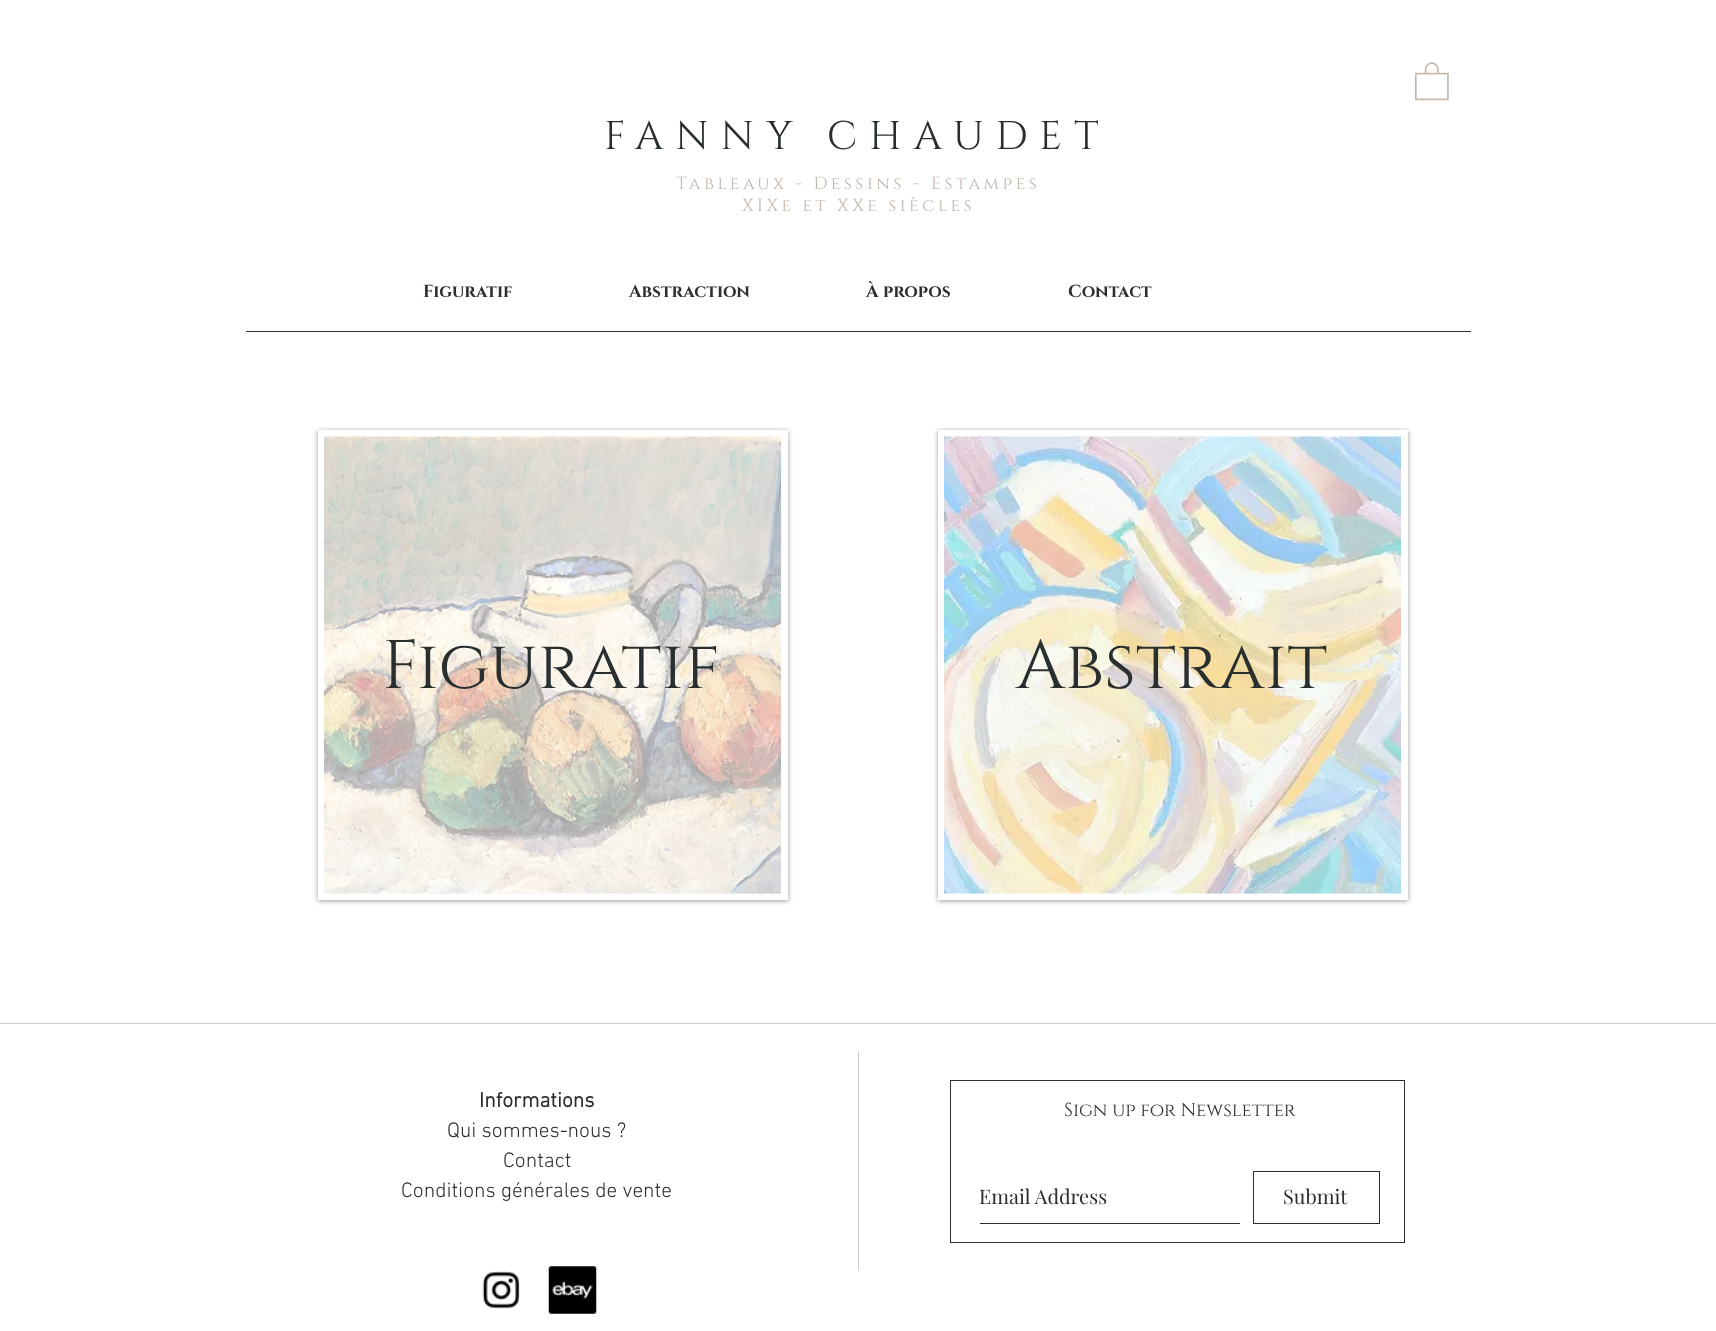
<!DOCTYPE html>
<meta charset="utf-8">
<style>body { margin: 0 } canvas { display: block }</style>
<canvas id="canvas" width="1716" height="1331"></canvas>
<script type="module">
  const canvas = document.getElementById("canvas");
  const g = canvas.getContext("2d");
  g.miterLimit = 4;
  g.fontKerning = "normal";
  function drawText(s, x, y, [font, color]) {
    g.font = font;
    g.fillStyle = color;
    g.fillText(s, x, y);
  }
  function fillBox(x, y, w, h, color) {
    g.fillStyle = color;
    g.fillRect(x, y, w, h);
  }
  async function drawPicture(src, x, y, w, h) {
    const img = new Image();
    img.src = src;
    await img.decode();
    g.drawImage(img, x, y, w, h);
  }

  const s1 = ["40px Cinzel", "#292F2F"];
  const s2 = ["17.5px Cinzel", "#C4B7AB"];
  const s3 = ["bold 17.5px Cinzel", "#2F2E2E"];
  const s4 = ["68.75px Cinzel", "#292F2F"];
  const s5 = ["bold 21.25px 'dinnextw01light'", "#2F2E2E"];
  const s6 = ["300 21.25px 'dinnextw01light'", "#292F2F"];
  const s7 = ["300 21.25px 'dinnextw01light'", "#2F2E2E"];
  const s8 = ["18.75px Cinzel", "#2F2E2E"];
  const s9 = ["20px Playfair Display", "#292F2F"];
  const s10 = ["20px Playfair Display", "#2F2E2E"];

  fillBox(0, 0, 1716, 1331, "#FFFFFF");
  await drawPicture("pic1.png", 1415, 62, 34, 39);
  g.letterSpacing = "12px";
  drawText("FANNY CHAUDET", 604, 149, s1);
  g.letterSpacing = "3.5px";
  drawText("Tableaux - Dessins - Estampes", 676, 189, s2);
  drawText("XIXe et XXe siècles", 742, 211, s2);
  g.letterSpacing = "0px";
  drawText("Figuratif", 423, 297, s3);
  drawText("Abstraction", 629, 297, s3);
  drawText("À propos", 866, 297, s3);
  drawText("Contact", 1068, 297, s3);
  fillBox(246, 331, 1225, 1, "#2F2E2E");
  g.fillStyle = "rgba(0, 0, 0, 0.4)";
  g.filter = "blur(2.5px)";
  g.beginPath();
  g.rect(318, 431, 470, 470);
  g.fill();
  g.filter = "none";
  fillBox(318, 430, 470, 470, "#FFFFFF");
  await drawPicture("pic2.png", 323, 436, 459, 458);
  g.fillStyle = "rgba(0, 0, 0, 0.4)";
  g.filter = "blur(2.5px)";
  g.beginPath();
  g.rect(938, 431, 470, 470);
  g.fill();
  g.filter = "none";
  fillBox(938, 430, 470, 470, "#FFFFFF");
  await drawPicture("pic3.png", 943, 436, 459, 458);
  drawText("Figuratif", 382, 688, s4);
  drawText("Abstrait", 1016, 688, s4);
  fillBox(0, 1023, 1716, 1, "#CCCCCC");
  drawText("Informations", 479, 1107, s5);
  drawText("Qui sommes-nous ?", 447, 1137, s6);
  drawText("Contact", 503, 1167, s7);
  drawText("Conditions générales de vente", 401, 1197, s7);
  fillBox(858, 1051, 1, 219, "#CCCCCC");
  fillBox(980, 1223, 260, 1, "#2F2E2E");
  g.strokeStyle = "#292F2F";
  g.strokeRect(1253.5, 1171.5, 126, 52);
  g.strokeStyle = "#2F2E2E";
  g.strokeRect(950.5, 1080.5, 454, 162);
  drawText("Sign up for Newsletter", 1064, 1116, s8);
  drawText("Email Address", 979, 1204, s9);
  drawText("Submit", 1283, 1204, s10);
  await drawPicture("pic4.png", 482, 1271, 38, 38);
  await drawPicture("pic5.png", 548, 1266, 49, 48);
</script>
